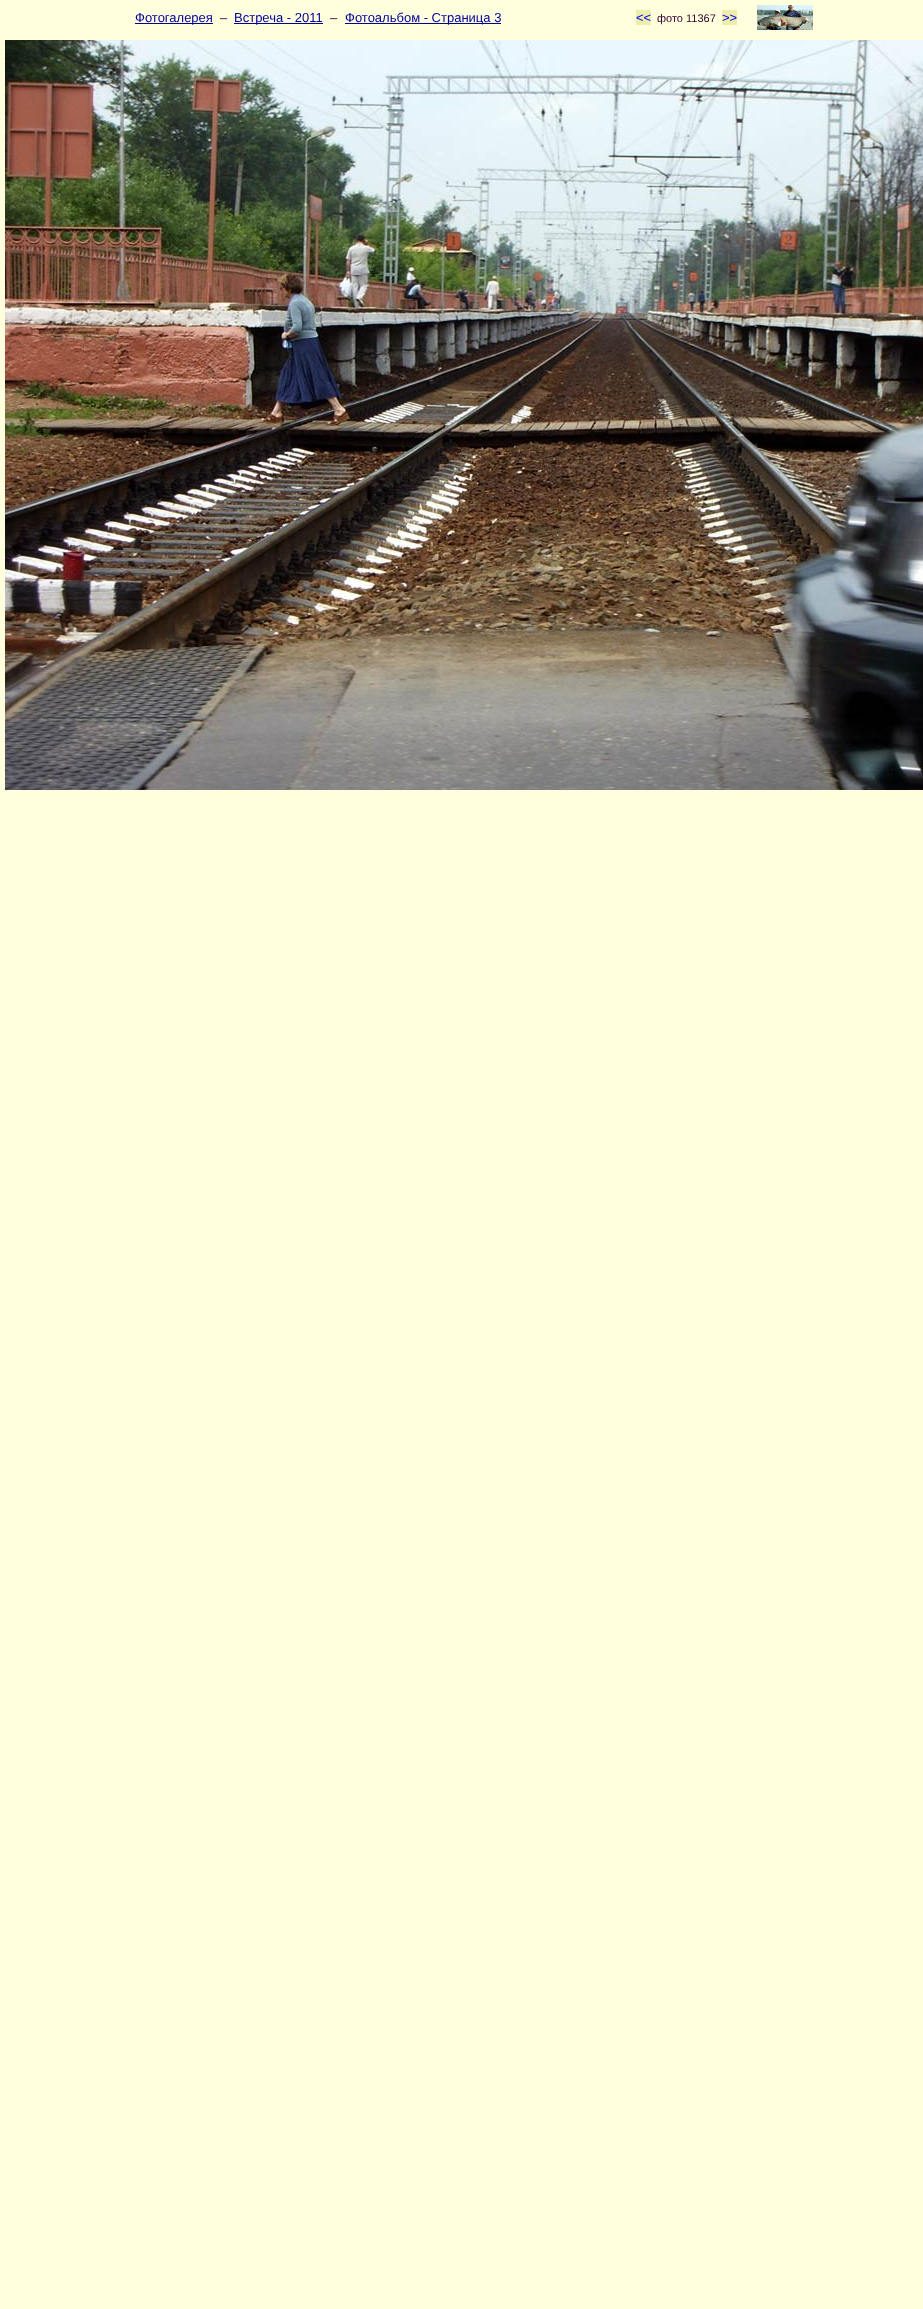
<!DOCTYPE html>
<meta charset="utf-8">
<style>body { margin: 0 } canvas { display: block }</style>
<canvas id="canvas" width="923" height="2309"></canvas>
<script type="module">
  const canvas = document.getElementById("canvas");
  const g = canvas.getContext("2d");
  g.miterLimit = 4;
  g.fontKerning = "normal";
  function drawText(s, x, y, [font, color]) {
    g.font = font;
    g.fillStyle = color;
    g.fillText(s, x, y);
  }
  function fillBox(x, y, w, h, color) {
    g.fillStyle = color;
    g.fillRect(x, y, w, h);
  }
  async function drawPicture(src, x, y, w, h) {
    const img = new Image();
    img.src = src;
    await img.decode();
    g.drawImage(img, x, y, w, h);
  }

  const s1 = ["13px Liberation Sans", "#000099"];
  const s2 = ["13px Liberation Sans", "#330033"];
  const s3 = ["13px Liberation Sans", "#0000FF"];
  const s4 = ["11px Liberation Sans", "#330033"];

  fillBox(0, 0, 923, 2309, "#FFFFDD");
  fillBox(135, 23, 78, 1, "#000099");
  drawText("Фотогалерея", 135, 22, s1);
  drawText("–", 220, 22, s2);
  fillBox(234, 23, 89, 1, "#000099");
  drawText("Встреча - 2011", 234, 22, s1);
  drawText("–", 330, 22, s2);
  fillBox(345, 23, 156, 1, "#000099");
  drawText("Фотоальбом - Страница 3", 345, 22, s1);
  fillBox(636, 10, 15, 15, "#EEEEAA");
  drawText("<<", 636, 22, s3);
  drawText("фото 11367", 657, 22, s4);
  fillBox(722, 10, 15, 15, "#EEEEAA");
  drawText(">>", 722, 22, s3);
  await drawPicture("pic1.png", 757, 5, 56, 25);
  await drawPicture("pic2.png", 5, 40, 918, 750);
</script>
